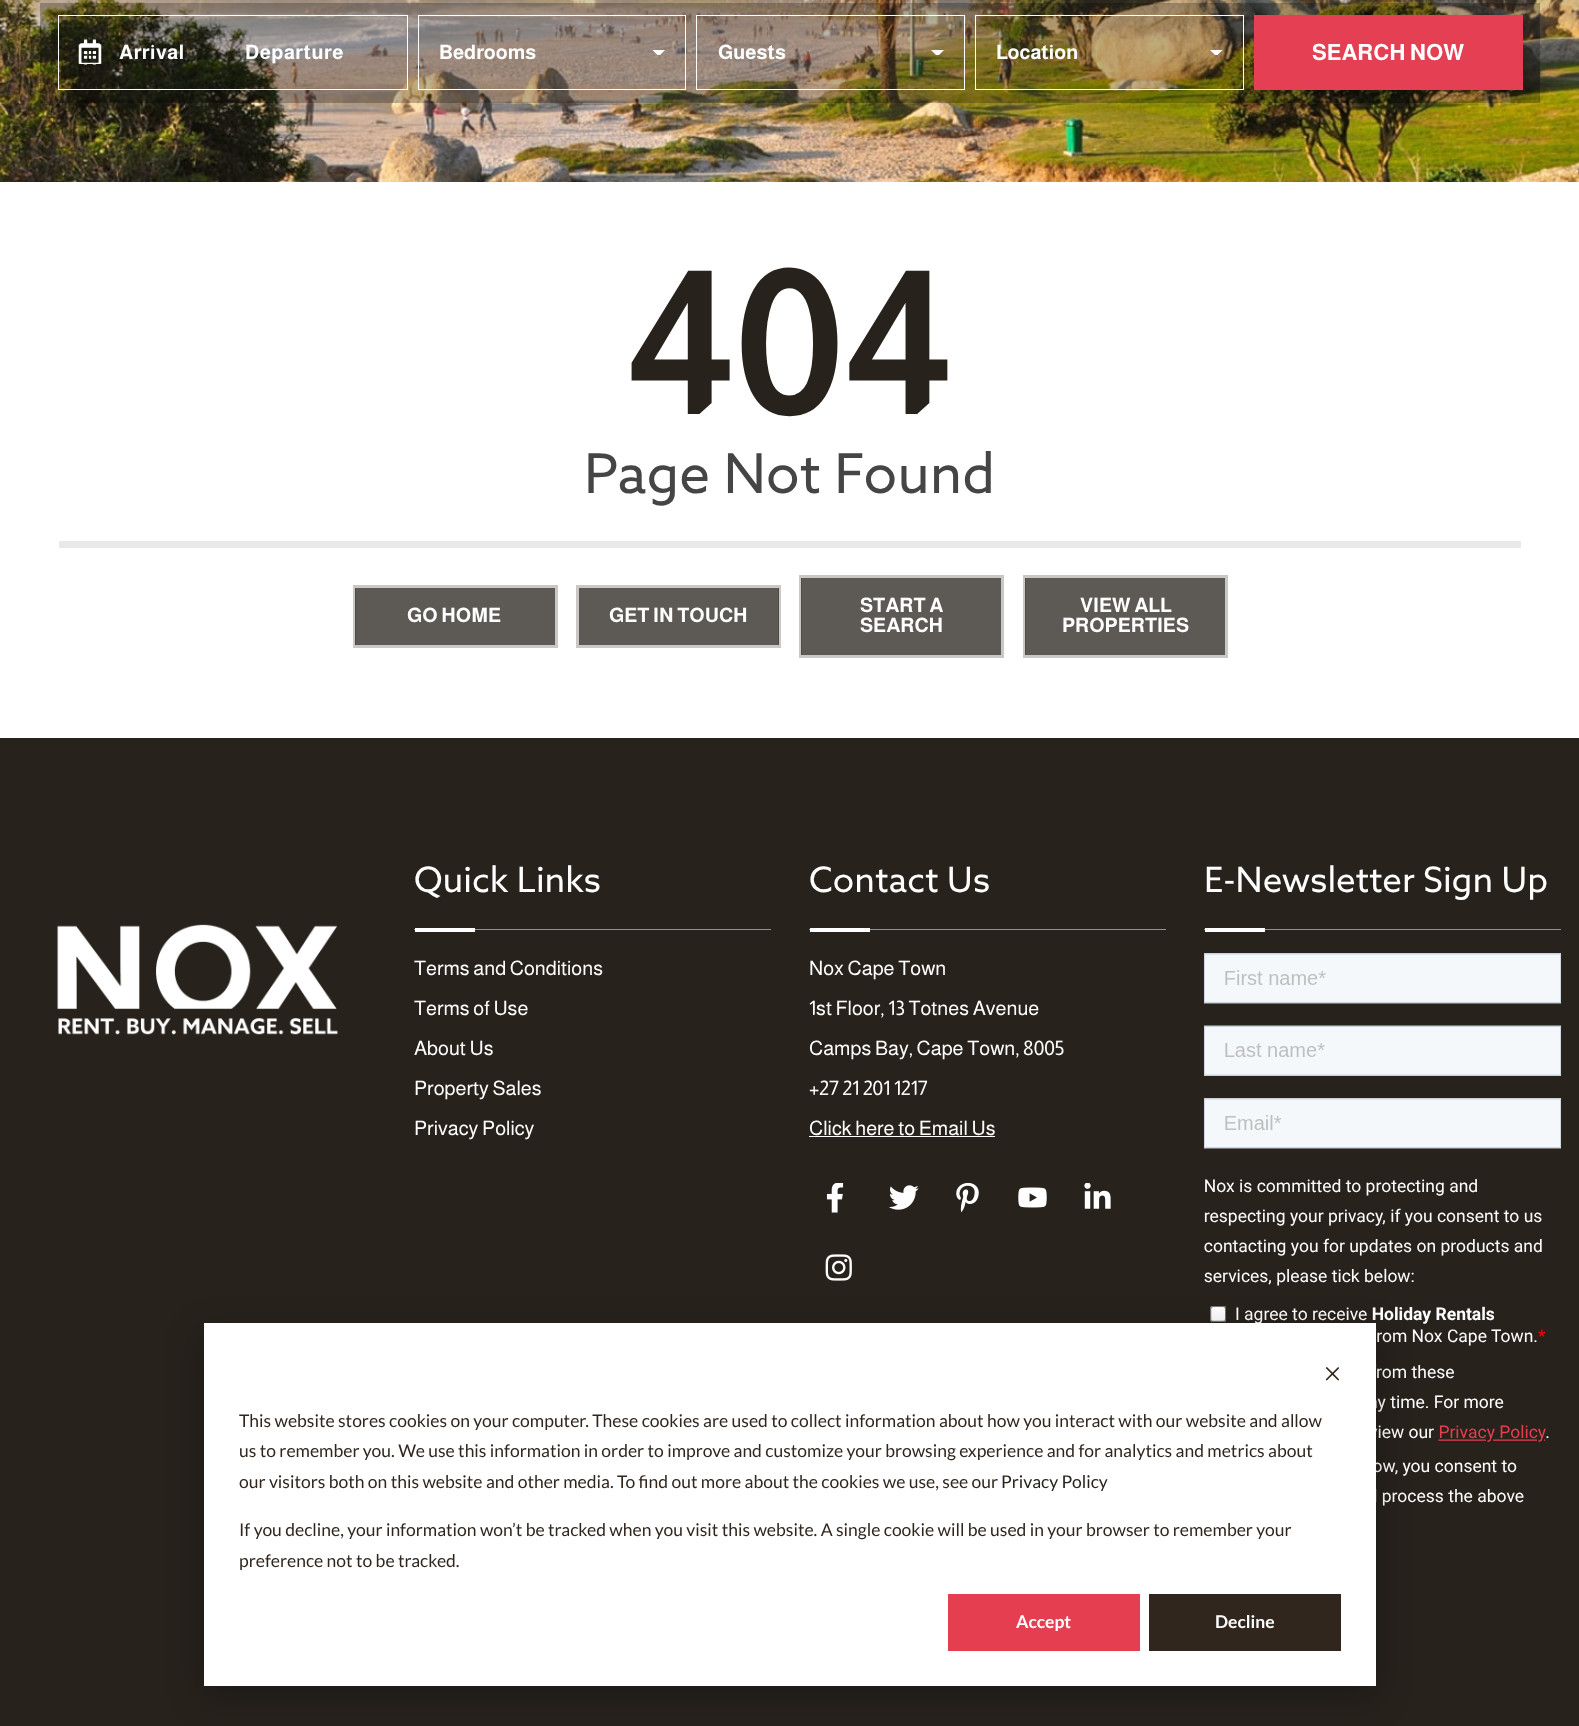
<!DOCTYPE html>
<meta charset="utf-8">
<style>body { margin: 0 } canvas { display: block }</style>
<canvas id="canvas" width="1579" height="1726"></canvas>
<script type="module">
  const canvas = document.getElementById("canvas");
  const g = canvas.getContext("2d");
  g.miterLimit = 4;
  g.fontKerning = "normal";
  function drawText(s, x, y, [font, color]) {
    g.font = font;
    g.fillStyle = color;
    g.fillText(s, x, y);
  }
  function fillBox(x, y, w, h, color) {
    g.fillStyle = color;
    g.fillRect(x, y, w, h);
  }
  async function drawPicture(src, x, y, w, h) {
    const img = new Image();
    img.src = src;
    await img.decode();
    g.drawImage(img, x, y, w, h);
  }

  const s1 = ["bold 20px Almarai", "#FFFFFF"];
  const s2 = ["bold 22.5px Almarai", "#FFFFFF"];
  const s3 = ["bold 200px Almarai", "#27221C"];
  const s4 = ["55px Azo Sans", "#454545"];
  const s5 = ["35px Azo Sans", "#FFFFFF"];
  const s6 = ["20px Almarai", "#FFFFFF"];
  const s7 = ["17.5px Lato", "#30261D"];
  const s8 = ["17.5px Lato", "#27221C"];
  const s9 = ["bold 17.5px Lato", "#FFFFFF"];

  fillBox(0, 0, 1579, 1726, "#FFFFFF");
  await drawPicture("pic1.png", 0, 0, 1579, 182);
  fillBox(40, 3, 1500, 100, "rgba(0, 0, 0, 0.25)");
  g.strokeStyle = "#FFFFFF";
  g.strokeRect(58.5, 15.5, 349, 74);
  await drawPicture("pic2.png", 78, 39, 24, 26);
  g.letterSpacing = "0.5px";
  drawText("Arrival", 119, 59, s1);
  drawText("Departure", 245, 59, s1);
  g.strokeRect(418.5, 15.5, 267, 74);
  g.letterSpacing = "0px";
  drawText("Bedrooms", 439, 59, s1);
  g.beginPath();
  g.moveTo(652.5, 50);
  g.lineTo(665, 50);
  g.lineTo(660, 55);
  g.lineTo(657.5, 55);
  g.closePath();
  g.fill();
  g.strokeRect(696.5, 15.5, 268, 74);
  drawText("Guests", 718, 59, s1);
  g.beginPath();
  g.moveTo(931, 50);
  g.lineTo(944, 50);
  g.lineTo(939, 55);
  g.lineTo(936, 55);
  g.closePath();
  g.fill();
  g.strokeRect(975.5, 15.5, 268, 74);
  drawText("Location", 996, 59, s1);
  g.beginPath();
  g.moveTo(1210, 50);
  g.lineTo(1222.5, 50);
  g.lineTo(1217.5, 55);
  g.lineTo(1215, 55);
  g.closePath();
  g.fill();
  fillBox(1254, 15, 269, 75, "#E43F52");
  drawText("SEARCH NOW", 1312, 60, s2);
  drawText("404", 627, 414, s3);
  drawText("Page Not Found", 584, 493, s4);
  fillBox(59, 541, 1462, 7, "#E9E9E8");
  g.strokeStyle = "#C9C8C6";
  g.lineWidth = 3;
  g.strokeRect(354.5, 586.5, 202, 60);
  fillBox(355, 588, 200, 57, "rgba(39, 34, 28, 0.75)");
  drawText("GO HOME", 407, 622, s1);
  g.strokeRect(577.5, 586.5, 202, 60);
  fillBox(579, 588, 200, 57, "rgba(39, 34, 28, 0.75)");
  drawText("GET IN TOUCH", 609, 622, s1);
  g.strokeRect(800.5, 576.5, 202, 80);
  fillBox(801, 578, 200, 77, "rgba(39, 34, 28, 0.75)");
  drawText("START A", 860, 612, s1);
  drawText("SEARCH", 860, 632, s1);
  g.strokeRect(1024.5, 576.5, 202, 80);
  fillBox(1025, 578, 200, 77, "rgba(39, 34, 28, 0.75)");
  drawText("VIEW ALL", 1080, 612, s1);
  drawText("PROPERTIES", 1062, 632, s1);
  fillBox(0, 738, 1579, 988, "#27221C");
  await drawPicture("pic3.png", 57, 924, 281, 111);
  fillBox(414, 929, 357, 1, "#93918E");
  drawText("Quick Links", 414, 892, s5);
  fillBox(415, 928, 60, 4, "#FFFFFF");
  drawText("Terms and Conditions", 414, 975, s6);
  drawText("Terms of Use", 414, 1015, s6);
  drawText("About Us", 414, 1055, s6);
  drawText("Property Sales", 414, 1095, s6);
  drawText("Privacy Policy", 414, 1135, s6);
  fillBox(809, 929, 357, 1, "#93918E");
  drawText("Contact Us", 809, 892, s5);
  fillBox(810, 928, 60, 4, "#FFFFFF");
  drawText("Nox Cape Town", 809, 975, s6);
  drawText("1st Floor, 13 Totnes Avenue", 809, 1015, s6);
  drawText("Camps Bay, Cape Town, 8005", 809, 1055, s6);
  drawText("+27 21 201 1217", 809, 1095, s6);
  drawText("Click here to Email Us", 809, 1135, s6);
  fillBox(809, 1136, 186, 1, "#FFFFFF");
  await drawPicture("pic4.png", 826, 1183, 18, 30);
  await drawPicture("pic5.png", 889, 1185, 30, 25);
  await drawPicture("pic6.png", 956, 1183, 23, 30);
  await drawPicture("pic7.png", 1018, 1187, 29, 21);
  await drawPicture("pic8.png", 1084, 1183, 27, 26);
  await drawPicture("pic9.png", 825, 1254, 27, 27);
  fillBox(1204, 929, 357, 1, "#93918E");
  drawText("E-Newsletter Sign Up", 1204, 892, s5);
  fillBox(1205, 928, 60, 4, "#FFFFFF");
  await drawPicture("pic10.png", 1203, 953, 359, 553);
  g.fillStyle = "rgba(0, 0, 0, 0.28)";
  g.filter = "blur(17.5px)";
  g.beginPath();
  g.rect(204, 1333, 1172, 363);
  g.fill();
  g.filter = "none";
  fillBox(204, 1323, 1172, 363, "#FFFFFF");
  await drawPicture("pic11.png", 1325, 1367, 14, 14);
  drawText("This website stores cookies on your computer. These cookies are used to collect information about how you interact with our website and allow", 239, 1427, s7);
  drawText("us to remember you. We use this information in order to improve and customize your browsing experience and for analytics and metrics about", 239, 1457, s7);
  drawText("our visitors both on this website and other media. To find out more about the cookies we use, see our", 239, 1488, s7);
  drawText("Privacy Policy", 1001, 1488, s8);
  drawText("If you decline, your information won’t be tracked when you visit this website. A single cookie will be used in your browser to remember your", 239, 1536, s7);
  drawText("preference not to be tracked.", 239, 1567, s7);
  fillBox(948, 1594, 192, 57, "#E53E51");
  drawText("Accept", 1016, 1628, s9);
  fillBox(1149, 1594, 192, 57, "#30261D");
  drawText("Decline", 1215, 1628, s9);
</script>
